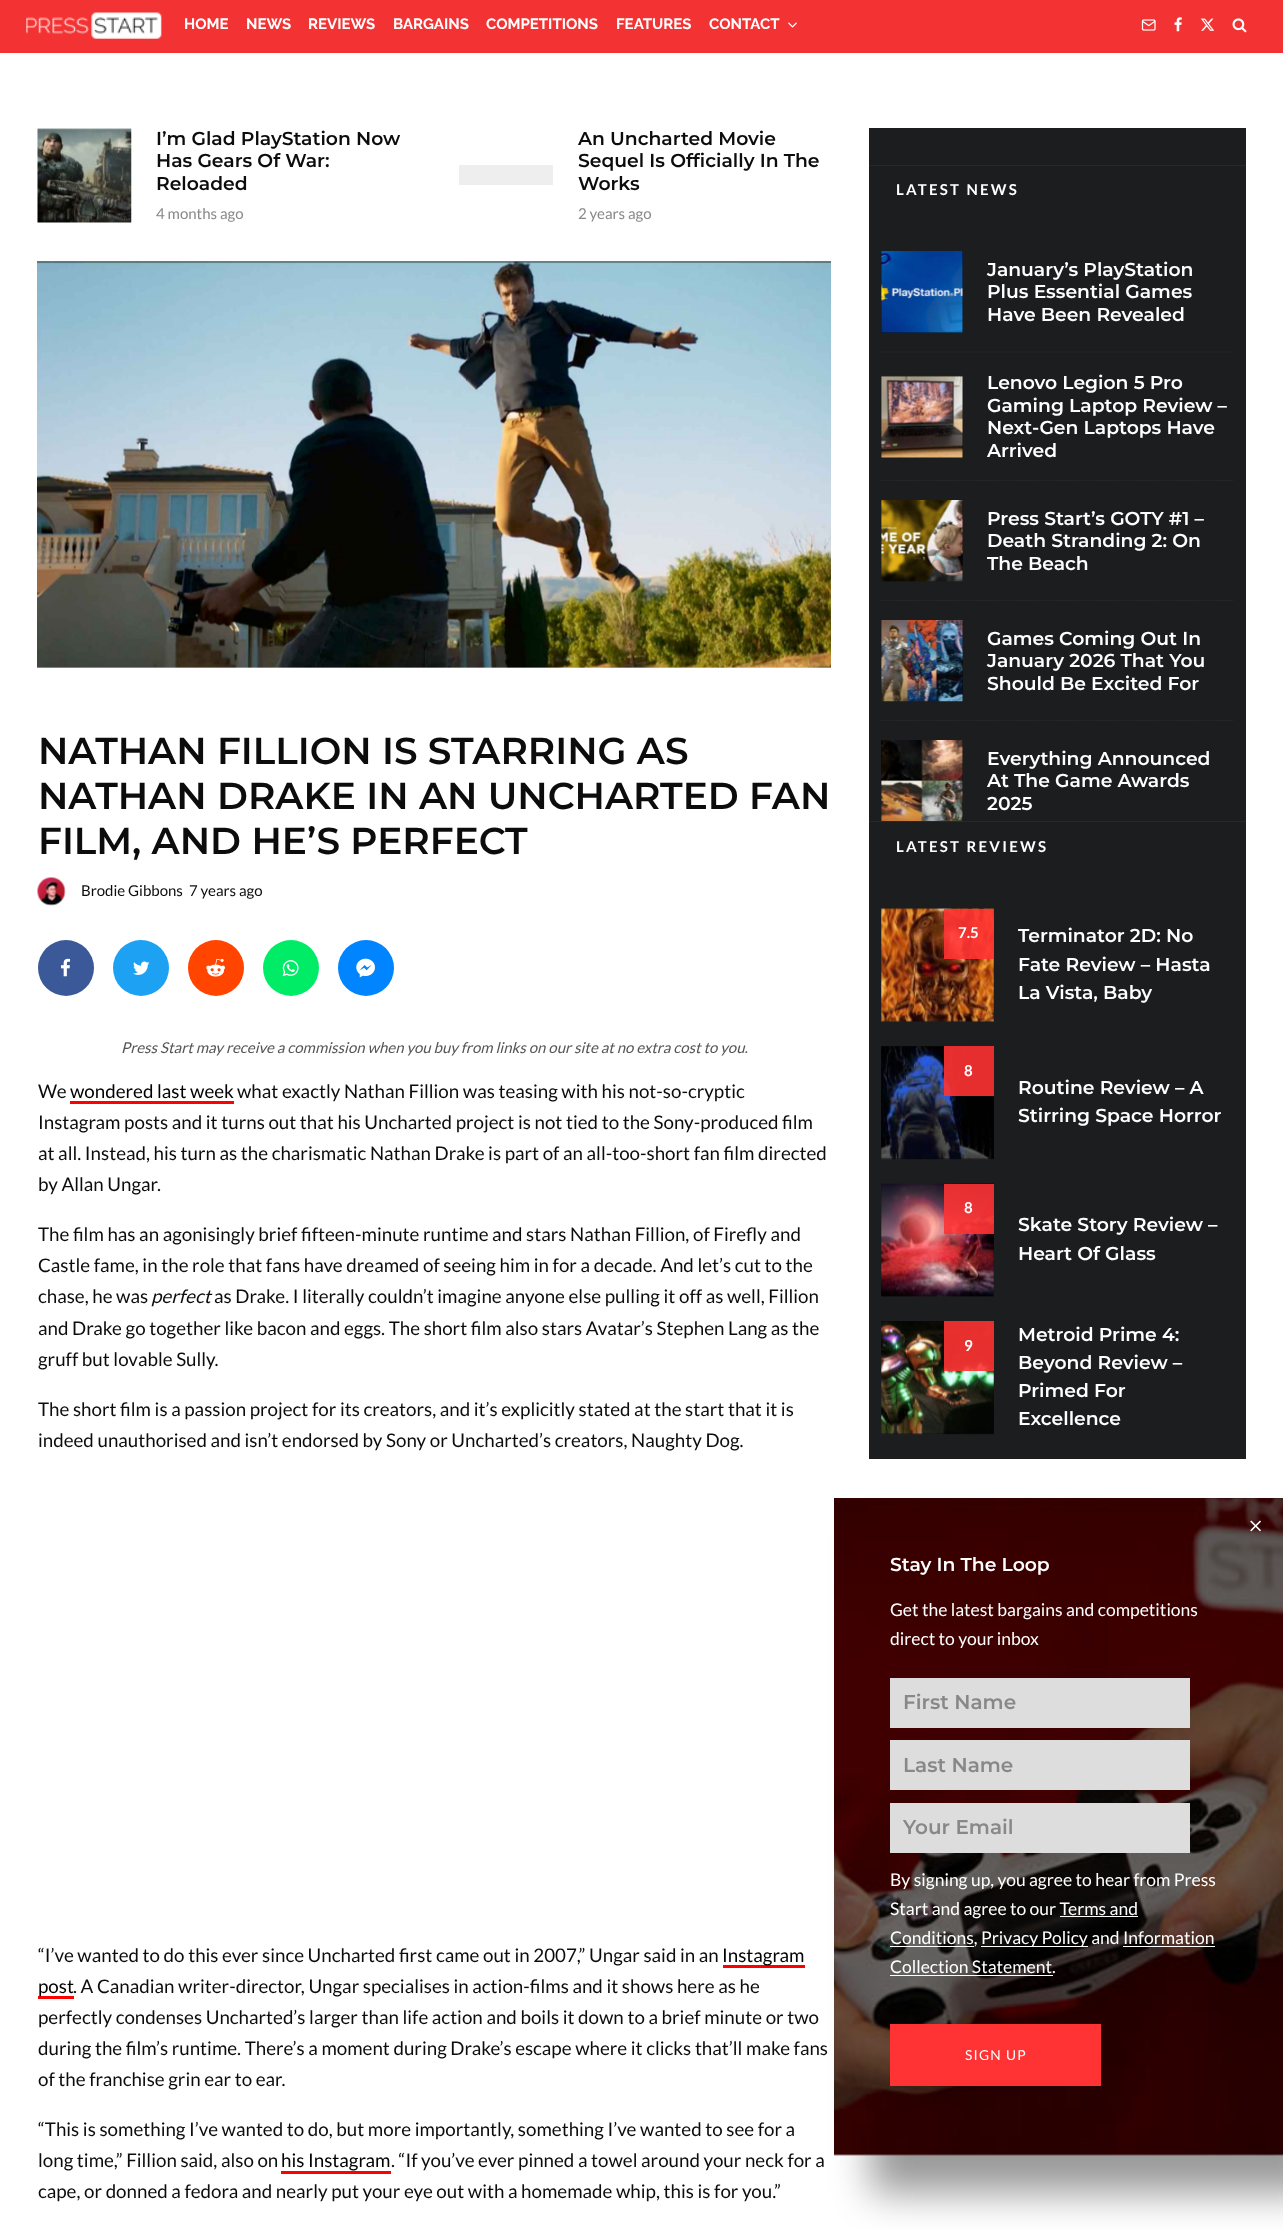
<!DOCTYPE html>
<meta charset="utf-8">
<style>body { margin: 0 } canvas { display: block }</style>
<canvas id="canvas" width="1283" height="2229"></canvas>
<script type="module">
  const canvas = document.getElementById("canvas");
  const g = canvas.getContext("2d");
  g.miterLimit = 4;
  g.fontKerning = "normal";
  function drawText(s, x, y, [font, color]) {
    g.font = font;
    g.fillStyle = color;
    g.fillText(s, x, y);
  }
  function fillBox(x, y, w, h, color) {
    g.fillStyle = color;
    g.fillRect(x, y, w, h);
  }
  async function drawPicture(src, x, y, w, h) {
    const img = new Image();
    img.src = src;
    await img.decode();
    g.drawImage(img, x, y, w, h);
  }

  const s1 = ["100 15px Raleway", "#FFFFFF"];
  const s2 = ["600 18.75px Montserrat", "#0C0C0C"];
  const s3 = ["15px Lato", "#888888"];
  const s4 = ["600 37.5px Montserrat", "#0C0C0C"];
  const s5 = ["15px Lato", "#0C0C0C"];
  const s6 = ["italic 15px Lato", "#555555"];
  const s7 = ["18.75px Lato", "#0C0C0C"];
  const s8 = ["18.75px Lato", "#000000"];
  const s9 = ["italic 18.75px Lato", "#0C0C0C"];
  const s10 = ["bold 15px Lato", "#FFFFFF"];
  const s11 = ["600 18.75px Montserrat", "#FFFFFF"];
  const s12 = ["17.5px Lato", "#FFFFFF"];
  const s13 = ["600 20px Montserrat", "#888888"];
  const s14 = ["13.75px Lato", "#FFFFFF"];

  fillBox(0, 0, 1283, 2229, "#FFFFFF");
  fillBox(0, 0, 1283, 53, "#F33333");
  await drawPicture("pic1.png", 26, 12, 136, 27);
  drawText("HOME", 184, 29, s1);
  drawText("NEWS", 246, 29, s1);
  drawText("REVIEWS", 308, 29, s1);
  drawText("BARGAINS", 393, 29, s1);
  drawText("COMPETITIONS", 486, 29, s1);
  drawText("FEATURES", 616, 29, s1);
  drawText("CONTACT", 709, 29, s1);
  await drawPicture("pic2.png", 788, 22, 9, 6);
  await drawPicture("pic3.png", 1141, 19, 15, 12);
  await drawPicture("pic4.png", 1174, 17, 8, 15);
  await drawPicture("pic5.png", 1200, 18, 15, 13);
  await drawPicture("pic6.png", 1232, 18, 15, 15);
  fillBox(38, 129, 93, 94, "#EEEEEE");
  await drawPicture("pic7.png", 37, 128, 95, 95);
  drawText("I’m Glad PlayStation Now", 156, 145, s2);
  drawText("Has Gears Of War:", 156, 167, s2);
  drawText("Reloaded", 156, 190, s2);
  drawText("4 months ago", 156, 219, s3);
  fillBox(459, 165, 94, 20, "#EEEEEE");
  drawText("An Uncharted Movie", 578, 145, s2);
  drawText("Sequel Is Officially In The", 578, 167, s2);
  drawText("Works", 578, 190, s2);
  drawText("2 years ago", 578, 219, s3);
  fillBox(38, 261, 793, 407, "#EEEEEE");
  await drawPicture("pic8.png", 37, 261, 794, 407);
  drawText("NATHAN FILLION IS STARRING AS", 38, 764, s4);
  drawText("NATHAN DRAKE IN AN UNCHARTED FAN", 38, 809, s4);
  drawText("FILM, AND HE’S PERFECT", 38, 854, s4);
  await drawPicture("pic9.png", 37, 877, 29, 29);
  drawText("Brodie Gibbons", 81, 896, s5);
  drawText("7 years ago", 189, 896, s5);
  g.fillStyle = "#3B5998";
  g.beginPath();
  g.arc(66, 968, 28, 0, Math.PI * 2);
  g.fill();
  await drawPicture("pic10.png", 61, 958, 10, 19);
  g.fillStyle = "#1DA1F2";
  g.beginPath();
  g.arc(141, 968, 28, 0, Math.PI * 2);
  g.fill();
  await drawPicture("pic11.png", 133, 961, 17, 14);
  g.fillStyle = "#FF4500";
  g.beginPath();
  g.arc(216, 968, 28, 0, Math.PI * 2);
  g.fill();
  await drawPicture("pic12.png", 206, 958, 19, 19);
  g.fillStyle = "#00EC67";
  g.beginPath();
  g.arc(291, 968, 28, 0, Math.PI * 2);
  g.fill();
  await drawPicture("pic13.png", 282, 960, 17, 17);
  g.fillStyle = "#0084FF";
  g.beginPath();
  g.arc(366, 968, 28, 0, Math.PI * 2);
  g.fill();
  await drawPicture("pic14.png", 356, 958, 19, 20);
  drawText("Press Start may receive a commission when you buy from links on our site at no extra cost to you.", 121, 1053, s6);
  drawText("We", 38, 1098, s7);
  drawText("wondered last week", 70, 1098, s8);
  fillBox(70, 1101, 164, 3, "#FF0000");
  drawText("what exactly Nathan Fillion was teasing with his not-so-cryptic", 237, 1098, s7);
  drawText("Instagram posts and it turns out that his Uncharted project is not tied to the Sony-produced film", 38, 1129, s7);
  drawText("at all. Instead, his turn as the charismatic Nathan Drake is part of an all-too-short fan film directed", 38, 1160, s7);
  drawText("by Allan Ungar.", 38, 1191, s7);
  drawText("The film has an agonisingly brief fifteen-minute runtime and stars Nathan Fillion, of Firefly and", 38, 1241, s7);
  drawText("Castle fame, in the role that fans have dreamed of seeing him in for a decade. And let’s cut to the", 38, 1272, s7);
  drawText("chase, he was", 38, 1303, s7);
  drawText("perfect", 151, 1303, s9);
  drawText("as Drake. I literally couldn’t imagine anyone else pulling it off as well, Fillion", 214, 1303, s7);
  drawText("and Drake go together like bacon and eggs. The short film also stars Avatar’s Stephen Lang as the", 38, 1335, s7);
  drawText("gruff but lovable Sully.", 38, 1366, s7);
  drawText("The short film is a passion project for its creators, and it’s explicitly stated at the start that it is", 38, 1416, s7);
  drawText("indeed unauthorised and isn’t endorsed by Sony or Uncharted’s creators, Naughty Dog.", 38, 1447, s7);
  drawText("“I’ve wanted to do this ever since Uncharted first came out in 2007,” Ungar said in an", 38, 1962, s7);
  fillBox(723, 1965, 82, 3, "#FF0000");
  drawText("Instagram", 722, 1962, s8);
  fillBox(38, 1996, 36, 3, "#FF0000");
  drawText("post", 38, 1993, s8);
  drawText(". A Canadian writer-director, Ungar specialises in action-films and it shows here as he", 73, 1993, s7);
  drawText("perfectly condenses Uncharted’s larger than life action and boils it down to a brief minute or two", 38, 2024, s7);
  drawText("during the film’s runtime. There’s a moment during Drake’s escape where it clicks that’ll make fans", 38, 2055, s7);
  drawText("of the franchise grin ear to ear.", 38, 2086, s7);
  drawText("“This is something I’ve wanted to do, but more importantly, something I’ve wanted to see for a", 38, 2136, s7);
  drawText("long time,” Fillion said, also on", 38, 2167, s7);
  drawText("his Instagram", 281, 2167, s8);
  fillBox(281, 2171, 110, 3, "#FF0000");
  drawText(". “If you’ve ever pinned a towel around your neck for a", 391, 2167, s7);
  drawText("cape, or donned a fedora and nearly put your eye out with a homemade whip, this is for you.”", 38, 2198, s7);
  fillBox(869, 128, 377, 1331, "#1C1D1E");
  fillBox(869, 165, 377, 1, "#282828");
  fillBox(869, 821, 377, 1, "#282828");
  g.letterSpacing = "2.25px";
  drawText("LATEST NEWS", 896, 195, s10);
  g.beginPath();
  g.moveTo(881, 352);
  g.lineTo(1234, 352);
  g.strokeStyle = "#2D2D2D";
  g.lineWidth = 1.2;
  g.setLineDash([1.25, 1.25]);
  g.stroke();
  fillBox(881, 251, 82, 82, "#0C0C0C");
  await drawPicture("pic15.png", 881, 251, 82, 82);
  g.letterSpacing = "0px";
  drawText("January’s PlayStation", 987, 276, s11);
  drawText("Plus Essential Games", 987, 298, s11);
  drawText("Have Been Revealed", 987, 321, s11);
  g.beginPath();
  g.moveTo(881, 480.5);
  g.lineTo(1234, 480.5);
  g.stroke();
  fillBox(881, 376, 82, 82, "#0C0C0C");
  await drawPicture("pic16.png", 881, 375, 82, 83);
  drawText("Lenovo Legion 5 Pro", 987, 389, s11);
  drawText("Gaming Laptop Review –", 987, 412, s11);
  drawText("Next-Gen Laptops Have", 987, 434, s11);
  drawText("Arrived", 987, 457, s11);
  g.beginPath();
  g.moveTo(881, 600.5);
  g.lineTo(1234, 600.5);
  g.stroke();
  fillBox(881, 500, 82, 81, "#0C0C0C");
  await drawPicture("pic17.png", 881, 500, 82, 82);
  drawText("Press Start’s GOTY #1 –", 987, 525, s11);
  drawText("Death Stranding 2: On", 987, 547, s11);
  drawText("The Beach", 987, 570, s11);
  g.beginPath();
  g.moveTo(881, 720.5);
  g.lineTo(1234, 720.5);
  g.stroke();
  fillBox(881, 620, 82, 81, "#0C0C0C");
  await drawPicture("pic18.png", 881, 620, 82, 82);
  drawText("Games Coming Out In", 987, 645, s11);
  drawText("January 2026 That You", 987, 667, s11);
  drawText("Should Be Excited For", 987, 690, s11);
  fillBox(881, 740, 82, 81, "#0C0C0C");
  await drawPicture("pic19.png", 881, 740, 82, 81);
  drawText("Everything Announced", 987, 765, s11);
  drawText("At The Game Awards", 987, 787, s11);
  drawText("2025", 987, 810, s11);
  g.letterSpacing = "2.25px";
  drawText("LATEST REVIEWS", 896, 852, s10);
  fillBox(881, 909, 113, 112, "#0C0C0C");
  await drawPicture("pic20.png", 881, 908, 113, 114);
  fillBox(944, 909, 50, 50, "rgba(255, 51, 51, 0.9)");
  g.letterSpacing = "0px";
  drawText("7.5", 958, 938, s10);
  drawText("Terminator 2D: No", 1018, 942, s11);
  drawText("Fate Review – Hasta", 1018, 971, s11);
  drawText("La Vista, Baby", 1018, 999, s11);
  fillBox(881, 1046, 113, 113, "#0C0C0C");
  await drawPicture("pic21.png", 881, 1046, 113, 114);
  fillBox(944, 1046, 50, 50, "rgba(255, 51, 51, 0.9)");
  drawText("8", 964, 1076, s10);
  drawText("Routine Review – A", 1018, 1094, s11);
  drawText("Stirring Space Horror", 1018, 1122, s11);
  fillBox(881, 1184, 113, 112, "#0C0C0C");
  await drawPicture("pic22.png", 881, 1183, 113, 114);
  fillBox(944, 1184, 50, 50, "rgba(255, 51, 51, 0.9)");
  drawText("8", 964, 1213, s10);
  drawText("Skate Story Review –", 1018, 1231, s11);
  drawText("Heart Of Glass", 1018, 1260, s11);
  fillBox(881, 1321, 113, 113, "#0C0C0C");
  await drawPicture("pic23.png", 881, 1321, 113, 114);
  fillBox(944, 1321, 50, 50, "rgba(255, 51, 51, 0.9)");
  drawText("9", 964, 1351, s10);
  drawText("Metroid Prime 4:", 1018, 1341, s11);
  drawText("Beyond Review –", 1018, 1369, s11);
  drawText("Primed For", 1018, 1397, s11);
  drawText("Excellence", 1018, 1425, s11);
  g.fillStyle = "rgba(0, 0, 0, 0.4)";
  g.filter = "blur(19px)";
  g.beginPath();
  g.rect(871, 1535, 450, 658);
  g.fill();
  g.filter = "none";
  await drawPicture("pic24.png", 834, 1498, 449, 658);
  await drawPicture("pic25.png", 1250, 1520, 11, 12);
  drawText("Stay In The Loop", 890, 1571, s11);
  drawText("Get the latest bargains and competitions", 890, 1616, s12);
  drawText("direct to your inbox", 890, 1645, s12);
  fillBox(890, 1678, 300, 50, "#DDDDDD");
  drawText("First Name", 903, 1709, s13);
  fillBox(890, 1740, 300, 50, "#DDDDDD");
  drawText("Last Name", 903, 1772, s13);
  fillBox(890, 1803, 300, 50, "#DDDDDD");
  drawText("Your Email", 903, 1834, s13);
  drawText("By signing up, you agree to hear from Press", 890, 1886, s12);
  drawText("Start and agree to our Terms and", 890, 1915, s12);
  fillBox(890, 1946, 84, 1, "#FFFFFF");
  drawText("Conditions,", 890, 1944, s12);
  fillBox(1060, 1916, 78, 1, "#FFFFFF");
  fillBox(981, 1946, 107, 1, "#FFFFFF");
  drawText("Privacy Policy and Information", 981, 1944, s12);
  drawText("Collection Statement.", 890, 1973, s12);
  fillBox(1123, 1946, 92, 1, "#FFFFFF");
  fillBox(890, 1975, 163, 1, "#FFFFFF");
  fillBox(890, 2024, 211, 62, "#FF3333");
  g.letterSpacing = "1.25px";
  drawText("SIGN UP", 965, 2060, s14);
</script>
